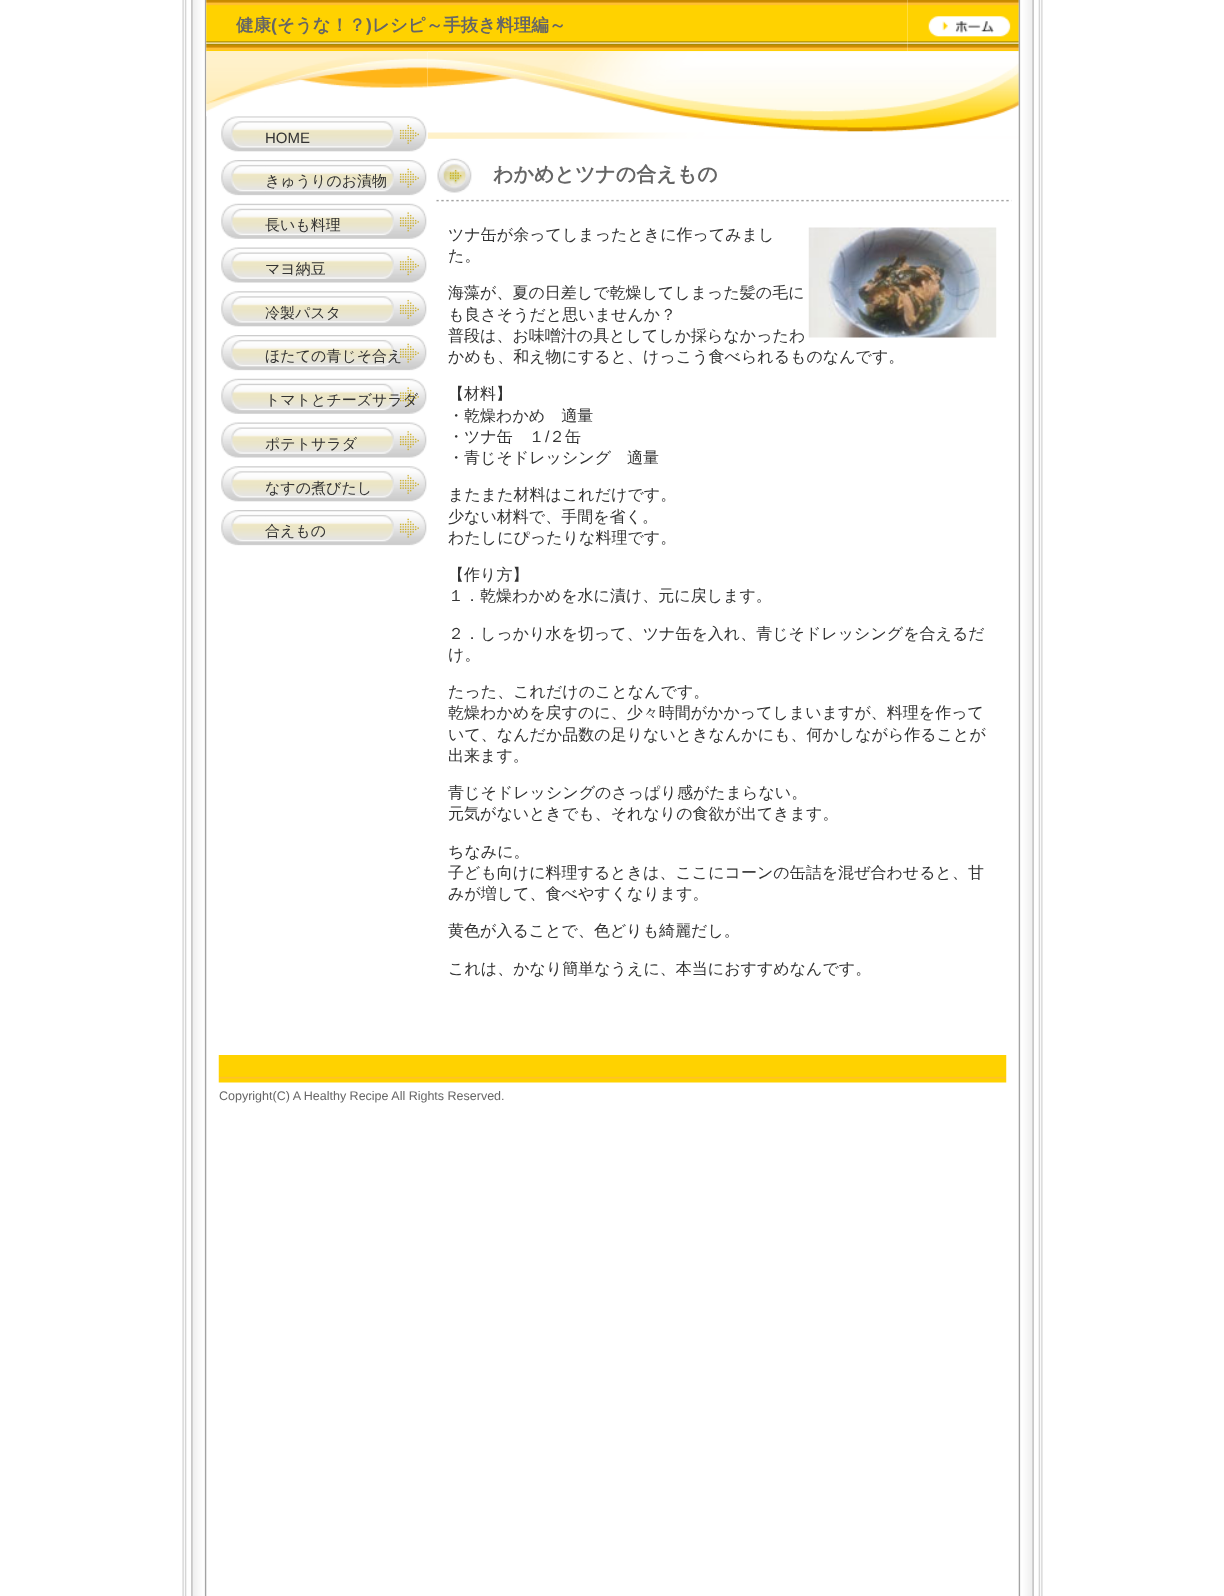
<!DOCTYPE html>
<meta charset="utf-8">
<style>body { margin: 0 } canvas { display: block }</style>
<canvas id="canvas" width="1224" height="1596"></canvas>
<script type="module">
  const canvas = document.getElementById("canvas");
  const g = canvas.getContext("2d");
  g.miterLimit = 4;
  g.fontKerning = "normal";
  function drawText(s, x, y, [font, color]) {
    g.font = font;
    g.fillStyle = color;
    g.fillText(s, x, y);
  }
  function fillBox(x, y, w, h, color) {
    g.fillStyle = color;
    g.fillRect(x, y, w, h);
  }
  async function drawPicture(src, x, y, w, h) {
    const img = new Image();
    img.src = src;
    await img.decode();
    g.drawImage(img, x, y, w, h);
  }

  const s1 = ["bold 17.5px WenQuanYi Zen Hei", "#666666"];
  const s2 = ["bold 17.5px Liberation Sans", "#666666"];
  const s3 = ["15px Liberation Sans", "#333333"];
  const s4 = ["500 15px WenQuanYi Zen Hei", "#333333"];
  const s5 = ["bold 20px WenQuanYi Zen Hei", "#666666"];
  const s6 = ["500 16px WenQuanYi Zen Hei", "#333333"];
  const s7 = ["16px Liberation Sans", "#333333"];
  const s8 = ["12.5px Liberation Sans", "#666666"];

  fillBox(0, 0, 1224, 1596, "#FFFFFF");
  await drawPicture("pic1.png", 182, 0, 25, 1596);
  await drawPicture("pic2.png", 206, 0, 702, 52);
  drawText("健康", 236, 31, s1);
  drawText("(", 271, 31, s2);
  drawText("そうな！？", 277, 31, s1);
  drawText(")", 366, 31, s2);
  drawText("レシピ～手抜き料理編～", 372, 31, s1);
  await drawPicture("pic3.png", 907, 0, 112, 52);
  await drawPicture("pic4.png", 928, 16, 83, 21);
  await drawPicture("pic12.png", 427, 51, 592, 88);
  await drawPicture("pic6.png", 221, 116, 207, 36);
  await drawPicture("pic5.png", 206, 51, 222, 66);
  drawText("HOME", 265, 143, s3);
  await drawPicture("pic7.png", 221, 160, 206, 36);
  drawText("きゅうりのお漬物", 265, 186, s4);
  await drawPicture("pic8.png", 221, 203, 206, 36);
  drawText("長いも料理", 265, 230, s4);
  await drawPicture("pic9.png", 221, 247, 206, 36);
  drawText("マヨ納豆", 265, 274, s4);
  await drawPicture("pic10.png", 221, 291, 206, 36);
  drawText("冷製パスタ", 265, 318, s4);
  await drawPicture("pic7.png", 221, 335, 206, 36);
  drawText("ほたての青じそ合え", 265, 361, s4);
  await drawPicture("pic8.png", 221, 378, 206, 36);
  drawText("トマトとチーズサラダ", 265, 405, s4);
  await drawPicture("pic9.png", 221, 422, 206, 36);
  drawText("ポテトサラダ", 265, 449, s4);
  await drawPicture("pic11.png", 221, 466, 206, 36);
  drawText("なすの煮びたし", 265, 493, s4);
  await drawPicture("pic7.png", 221, 510, 206, 36);
  drawText("合えもの", 265, 536, s4);
  await drawPicture("pic13.png", 437, 158, 35, 35);
  drawText("わかめとツナの合えもの", 493, 181, s5);
  await drawPicture("pic14.png", 436, 199, 576, 3);
  drawText("ツナ缶が余ってしまったときに作ってみまし", 448, 240, s6);
  drawText("た。", 448, 261, s6);
  await drawPicture("pic15.png", 808, 227, 189, 111);
  drawText("海藻が、夏の日差しで乾燥してしまった髪の毛に", 448, 298, s6);
  drawText("も良さそうだと思いませんか？", 448, 320, s6);
  drawText("普段は、お味噌汁の具としてしか採らなかったわ", 448, 341, s6);
  drawText("かめも、和え物にすると、けっこう食べられるものなんです。", 448, 362, s6);
  drawText("【材料】", 448, 399, s6);
  drawText("・乾燥わかめ　適量", 448, 421, s6);
  drawText("・ツナ缶　１", 448, 442, s6);
  drawText("/", 545, 442, s7);
  drawText("２缶", 549, 442, s6);
  drawText("・青じそドレッシング　適量", 448, 463, s6);
  drawText("またまた材料はこれだけです。", 448, 500, s6);
  drawText("少ない材料で、手間を省く。", 448, 522, s6);
  drawText("わたしにぴったりな料理です。", 448, 543, s6);
  drawText("【作り方】", 448, 580, s6);
  drawText("１．乾燥わかめを水に漬け、元に戻します。", 448, 601, s6);
  drawText("２．しっかり水を切って、ツナ缶を入れ、青じそドレッシングを合えるだ", 448, 639, s6);
  drawText("け。", 448, 660, s6);
  drawText("たった、これだけのことなんです。", 448, 697, s6);
  drawText("乾燥わかめを戻すのに、少々時間がかかってしまいますが、料理を作って", 448, 718, s6);
  drawText("いて、なんだか品数の足りないときなんかにも、何かしながら作ることが", 448, 740, s6);
  drawText("出来ます。", 448, 761, s6);
  drawText("青じそドレッシングのさっぱり感がたまらない。", 448, 798, s6);
  drawText("元気がないときでも、それなりの食欲が出てきます。", 448, 819, s6);
  drawText("ちなみに。", 448, 857, s6);
  drawText("子ども向けに料理するときは、ここにコーンの缶詰を混ぜ合わせると、甘", 448, 878, s6);
  drawText("みが増して、食べやすくなります。", 448, 899, s6);
  drawText("黄色が入ることで、色どりも綺麗だし。", 448, 936, s6);
  drawText("これは、かなり簡単なうえに、本当におすすめなんです。", 448, 974, s6);
  await drawPicture("pic16.png", 218, 1055, 789, 28);
  drawText("Copyright(C) A Healthy Recipe All Rights Reserved.", 219, 1100, s8);
  await drawPicture("pic17.png", 1018, 0, 25, 1596);
</script>
